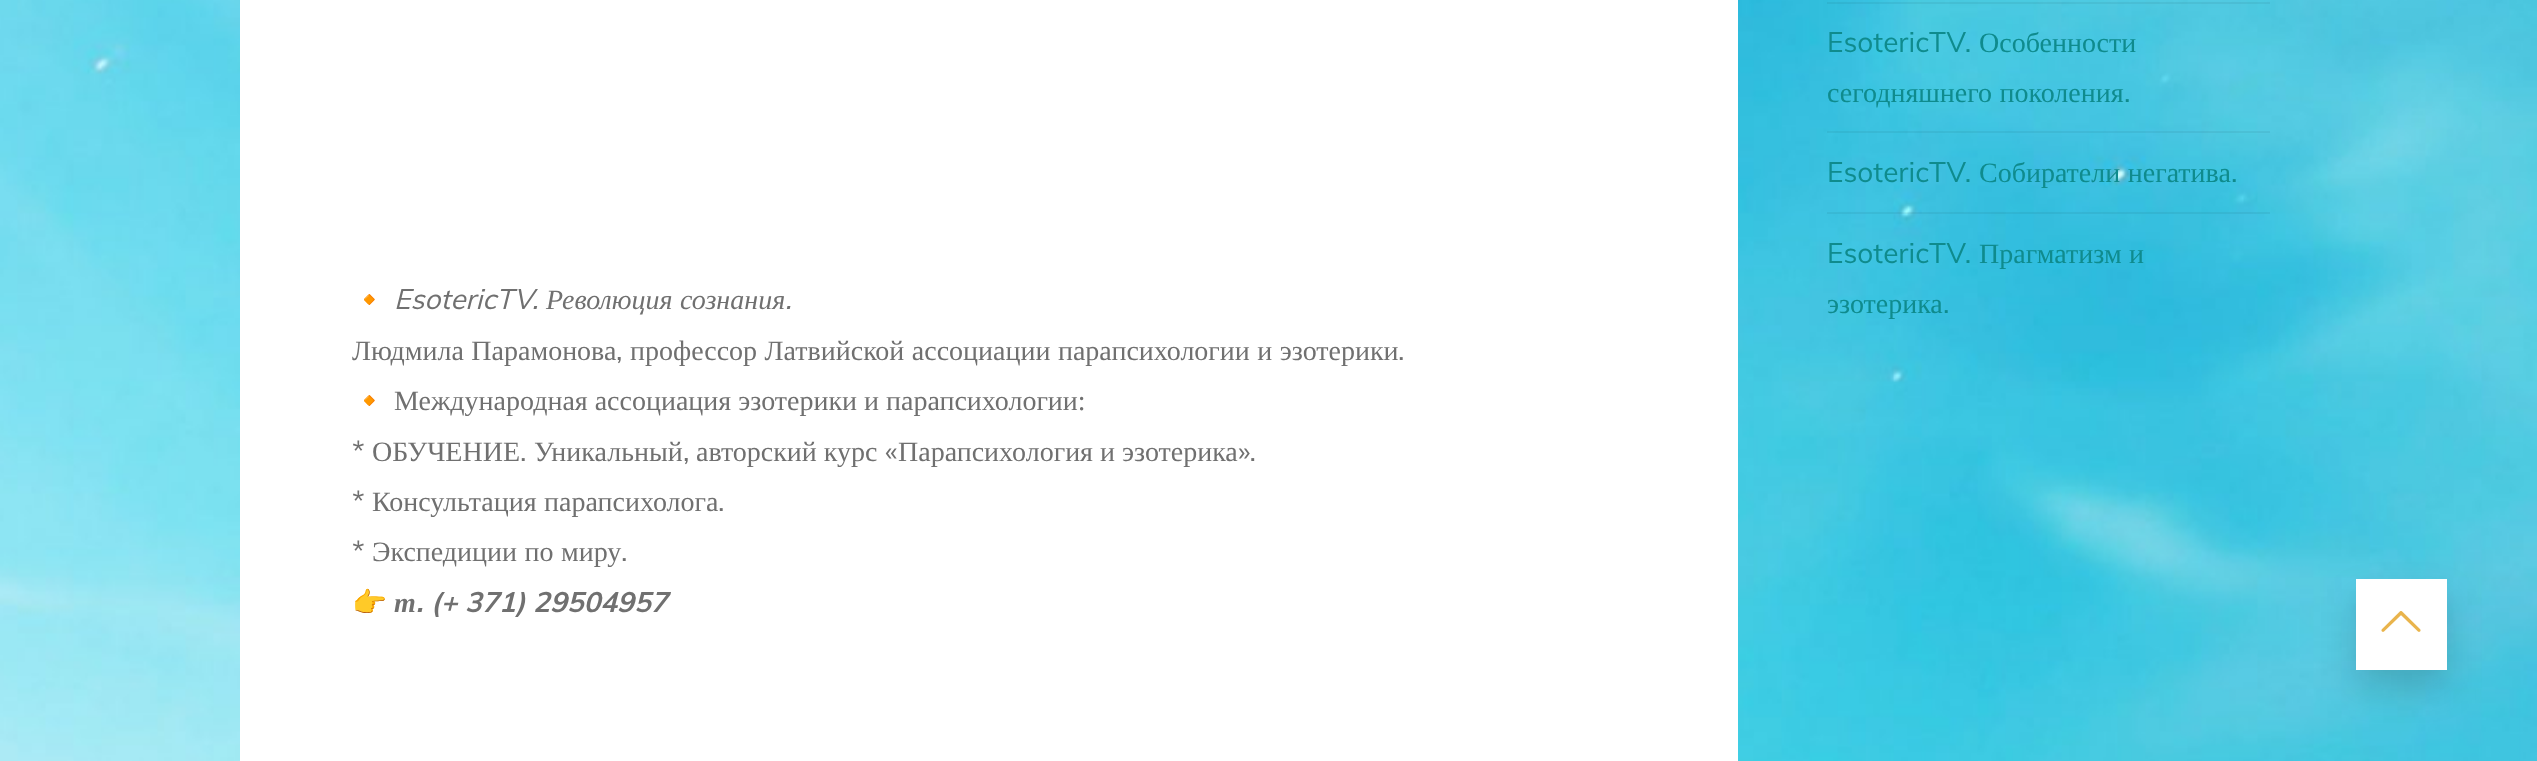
<!DOCTYPE html>
<meta charset="utf-8">
<style>body { margin: 0 } canvas { display: block }</style>
<canvas id="canvas" width="2537" height="761"></canvas>
<script type="module">
  const canvas = document.getElementById("canvas");
  const g = canvas.getContext("2d");
  g.miterLimit = 4;
  g.fontKerning = "normal";
  function drawText(s, x, y, [font, color]) {
    g.font = font;
    g.fillStyle = color;
    g.fillText(s, x, y);
  }
  function fillBox(x, y, w, h, color) {
    g.fillStyle = color;
    g.fillRect(x, y, w, h);
  }
  async function drawPicture(src, x, y, w, h) {
    const img = new Image();
    img.src = src;
    await img.decode();
    g.drawImage(img, x, y, w, h);
  }

  const s1 = ["28px Muli", "#0F8B8D"];
  const s2 = ["28px Liberation Serif", "#0F8B8D"];
  const s3 = ["28px Noto Color Emoji", "#707070"];
  const s4 = ["italic 28px Muli", "#707070"];
  const s5 = ["italic 28px Liberation Serif", "#707070"];
  const s6 = ["28px Liberation Serif", "#707070"];
  const s7 = ["28px Muli", "#707070"];
  const s8 = ["italic bold 28px Liberation Serif", "#707070"];
  const s9 = ["italic bold 28px Muli", "#707070"];

  fillBox(0, 0, 2537, 761, "#FFFFFF");
  await drawPicture("pic1.png", 0, 0, 2537, 761);
  fillBox(1827, 2, 443, 2, "rgba(0, 0, 0, 0.05)");
  fillBox(1827, 131, 443, 2, "rgba(0, 0, 0, 0.05)");
  drawText("EsotericTV.", 1827, 52, s1);
  drawText("Особенности", 1979, 52, s2);
  g.wordSpacing = "0.5px";
  drawText("сегодняшнего поколения", 1827, 102, s2);
  g.wordSpacing = "0px";
  drawText(".", 2124, 102, s1);
  fillBox(1827, 212, 443, 2, "rgba(0, 0, 0, 0.05)");
  drawText("EsotericTV.", 1827, 182, s1);
  g.wordSpacing = "0.5px";
  drawText("Собиратели негатива", 1979, 182, s2);
  g.wordSpacing = "0px";
  drawText(".", 2231, 182, s1);
  drawText("EsotericTV.", 1827, 263, s1);
  g.wordSpacing = "0.5px";
  drawText("Прагматизм и", 1979, 263, s2);
  g.wordSpacing = "0px";
  drawText("эзотерика", 1827, 313, s2);
  drawText(".", 1943, 313, s1);
  fillBox(240, 0, 1498, 761, "#FFFFFF");
  drawText("🔸", 352, 309, s3);
  drawText("EsotericTV.", 394, 309, s4);
  g.wordSpacing = "0.5px";
  drawText("Революция сознания", 546, 309, s5);
  g.wordSpacing = "0px";
  drawText(".", 785, 309, s4);
  g.wordSpacing = "0.5px";
  drawText("Людмила Парамонова", 352, 360, s6);
  g.wordSpacing = "0px";
  drawText(",", 616, 360, s7);
  g.wordSpacing = "0.5px";
  drawText("профессор Латвийской ассоциации парапсихологии и эзотерики", 630, 360, s6);
  g.wordSpacing = "0px";
  drawText(".", 1398, 360, s7);
  drawText("🔸", 352, 410, s3);
  drawText("Международная ассоциация эзотерики и парапсихологии:", 394, 410, s6);
  drawText("*", 352, 461, s7);
  drawText("ОБУЧЕНИЕ", 372, 461, s6);
  drawText(".", 520, 461, s7);
  drawText("Уникальный", 534, 461, s6);
  drawText(",", 683, 461, s7);
  drawText("авторский курс", 696, 461, s6);
  drawText("«", 885, 461, s7);
  drawText("Парапсихология и эзотерика", 898, 461, s6);
  drawText("».", 1238, 461, s7);
  drawText("*", 352, 511, s7);
  g.wordSpacing = "0.5px";
  drawText("Консультация парапсихолога", 372, 511, s6);
  g.wordSpacing = "0px";
  drawText(".", 718, 511, s7);
  drawText("*", 352, 561, s7);
  g.wordSpacing = "0.5px";
  drawText("Экспедиции по миру", 372, 561, s6);
  g.wordSpacing = "0px";
  drawText(".", 621, 561, s7);
  drawText("👉", 352, 612, s3);
  drawText("т", 394, 612, s8);
  drawText(". (+ 371) 29504957", 416, 612, s9);
  g.fillStyle = "rgba(0, 0, 0, 0.15)";
  g.filter = "blur(17.5px)";
  g.beginPath();
  g.rect(2356, 597, 91, 91);
  g.fill();
  g.filter = "none";
  fillBox(2356, 579, 91, 91, "#FFFFFF");
  await drawPicture("pic2.png", 2381, 611, 40, 21);
</script>
